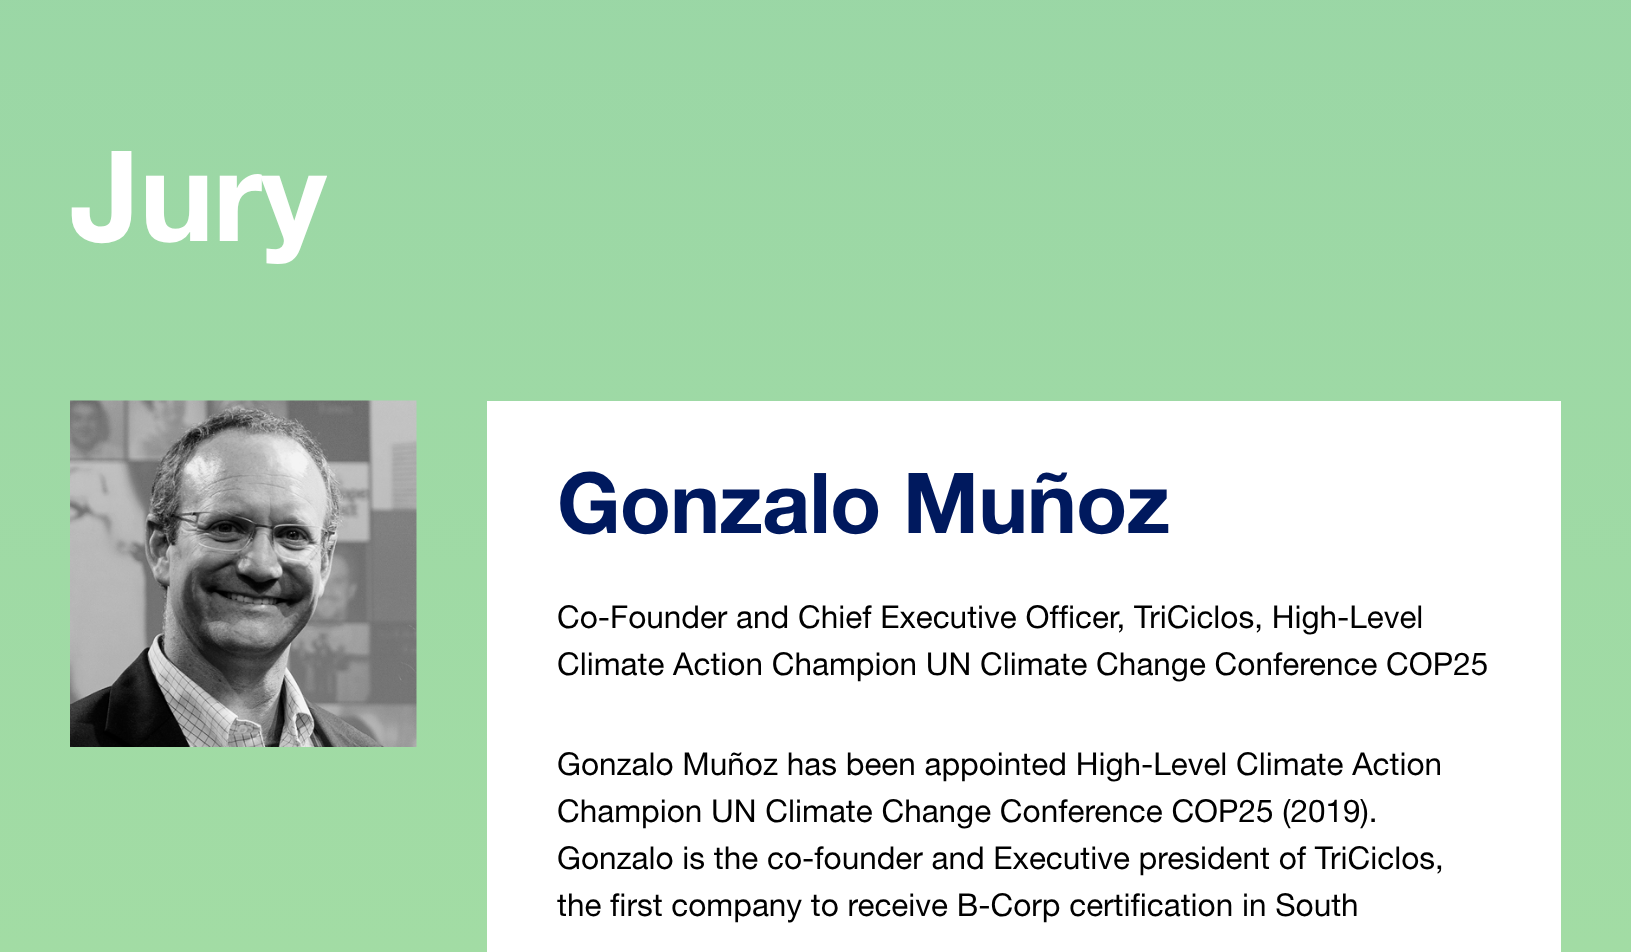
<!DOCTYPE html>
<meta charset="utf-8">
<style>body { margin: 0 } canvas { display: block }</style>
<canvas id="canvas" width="1631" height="952"></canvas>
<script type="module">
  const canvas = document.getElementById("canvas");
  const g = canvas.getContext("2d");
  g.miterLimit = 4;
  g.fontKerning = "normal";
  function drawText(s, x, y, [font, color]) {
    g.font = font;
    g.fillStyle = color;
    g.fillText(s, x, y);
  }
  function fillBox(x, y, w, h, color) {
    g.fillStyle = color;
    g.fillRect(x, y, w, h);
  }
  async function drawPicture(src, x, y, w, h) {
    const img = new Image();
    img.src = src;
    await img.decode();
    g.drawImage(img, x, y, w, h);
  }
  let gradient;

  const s1 = ["bold 126px Helvetica Neue", "#FFFFFF"];
  const s2 = ["bold 84px Helvetica Neue", "#00195E"];
  const s3 = ["31.5px Helvetica Neue", "#000000"];

  fillBox(0, 0, 1631, 952, "#FFFFFF");
  gradient = g.createLinearGradient(815, -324, 816, 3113);
  gradient.addColorStop(0, "#98D5A6");
  gradient.addColorStop(1, "#B3E8A1");
  g.fillStyle = gradient;
  g.fillRect(0, 0, 1631, 952);
  g.letterSpacing = "-0.9px";
  drawText("Jury", 70, 241, s1);
  await drawPicture("pic1.png", 70, 400, 347, 347);
  fillBox(487, 401, 1074, 551, "#FFFFFF");
  drawText("Gonzalo Muñoz", 557, 533, s2);
  g.letterSpacing = "0px";
  drawText("Co-Founder and Chief Executive Officer, TriCiclos, High-Level", 557, 628, s3);
  drawText("Climate Action Champion UN Climate Change Conference COP25", 557, 675, s3);
  drawText("Gonzalo Muñoz has been appointed High-Level Climate Action", 557, 775, s3);
  drawText("Champion UN Climate Change Conference COP25 (2019).", 557, 822, s3);
  drawText("Gonzalo is the co-founder and Executive president of TriCiclos,", 557, 869, s3);
  drawText("the first company to receive B-Corp certification in South", 557, 916, s3);
</script>
